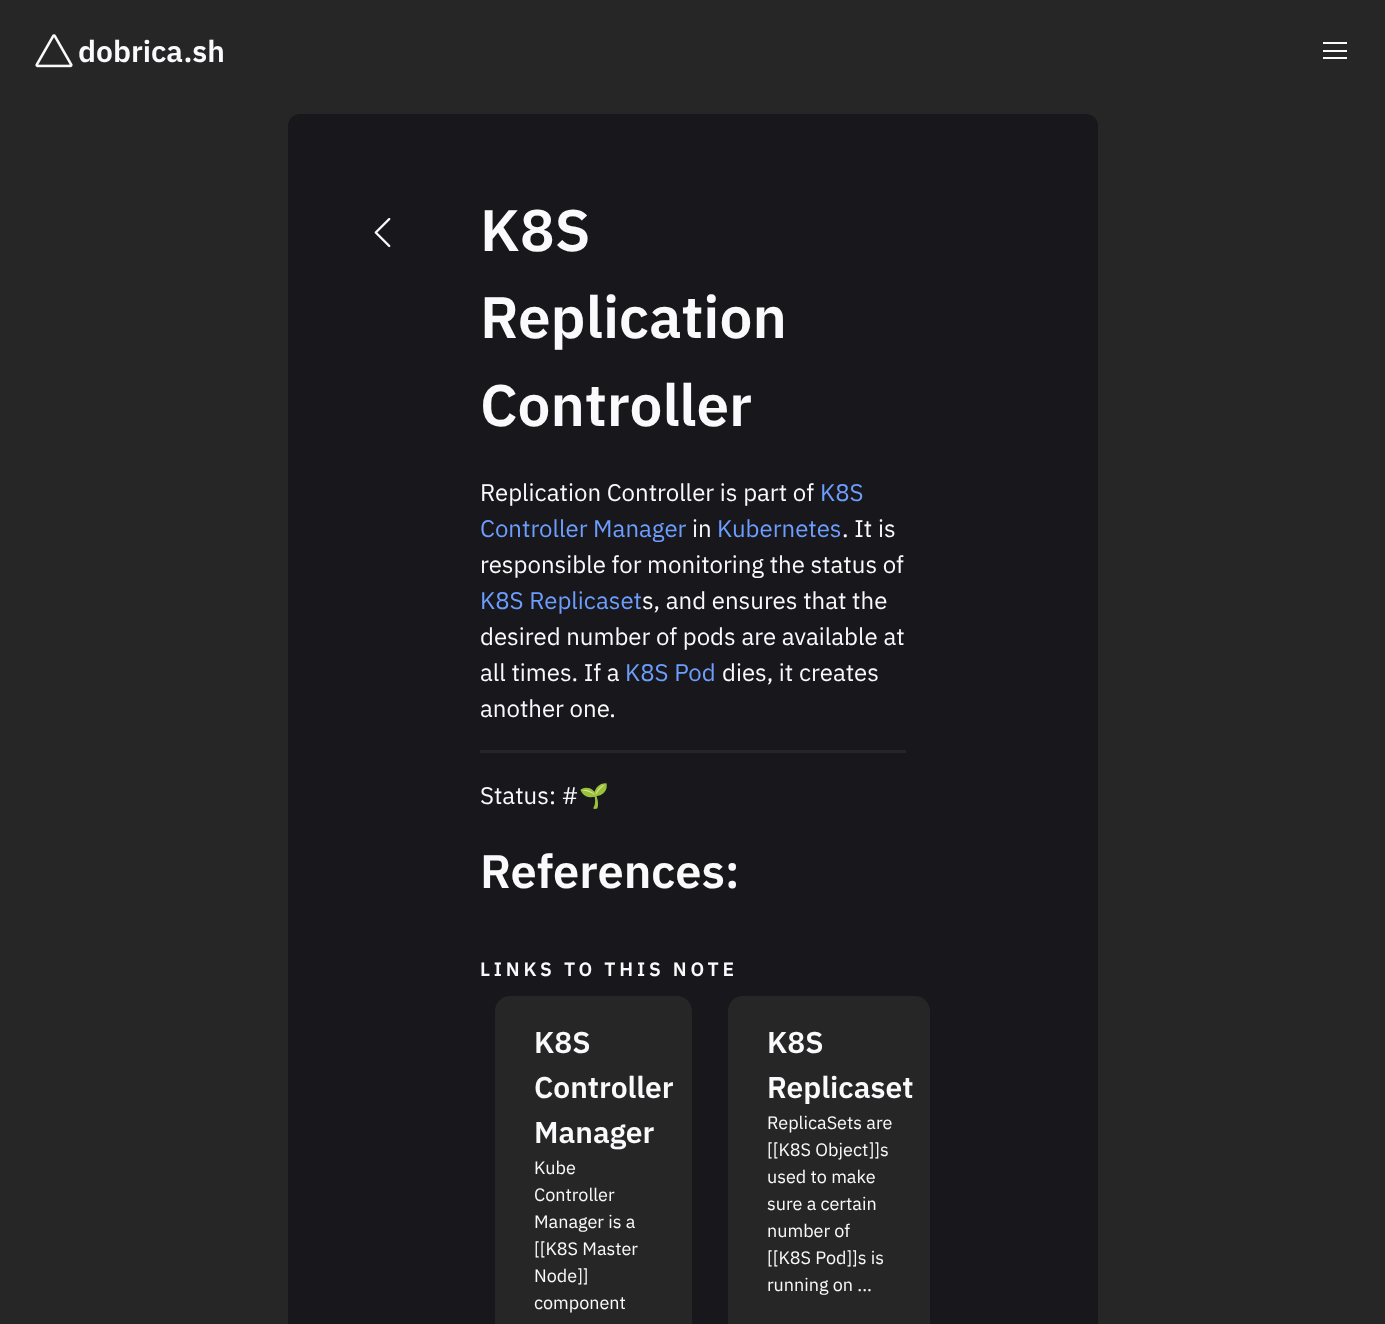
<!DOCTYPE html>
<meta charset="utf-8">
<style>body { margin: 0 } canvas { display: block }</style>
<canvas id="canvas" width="1385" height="1324"></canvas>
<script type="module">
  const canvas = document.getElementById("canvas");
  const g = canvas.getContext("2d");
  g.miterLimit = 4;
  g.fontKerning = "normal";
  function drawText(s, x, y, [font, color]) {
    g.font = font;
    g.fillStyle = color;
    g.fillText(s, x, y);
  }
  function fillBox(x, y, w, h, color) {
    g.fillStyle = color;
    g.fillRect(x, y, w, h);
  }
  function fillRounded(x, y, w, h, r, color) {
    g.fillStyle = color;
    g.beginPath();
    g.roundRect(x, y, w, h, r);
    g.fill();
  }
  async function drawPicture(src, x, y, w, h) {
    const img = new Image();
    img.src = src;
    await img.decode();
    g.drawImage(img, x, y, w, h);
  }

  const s1 = ["600 30px IBM Plex Sans", "#FAFAFC"];
  const s2 = ["600 58.5px IBM Plex Sans", "#FAFAFC"];
  const s3 = ["24px IBM Plex Sans", "#FAFAFC"];
  const s4 = ["24px IBM Plex Sans", "#6D9EFF"];
  const s5 = ["24px Noto Color Emoji", "#FAFAFC"];
  const s6 = ["600 47px IBM Plex Sans", "#FAFAFC"];
  const s7 = ["600 19.25px IBM Plex Sans", "#FAFAFC"];
  const s8 = ["18px IBM Plex Sans", "#FAFAFC"];

  fillBox(0, 0, 1385, 1324, "#262626");
  await drawPicture("pic1.png", 35, 34, 38, 34);
  drawText("dobrica.sh", 78, 62, s1);
  fillBox(1323, 42, 24, 2, "#FAFAFC");
  fillBox(1323, 50, 24, 2, "#FAFAFC");
  fillBox(1323, 57, 24, 2, "#FAFAFC");
  fillRounded(288, 114, 810, 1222, 12, "#18181C");
  await drawPicture("pic2.png", 374, 218, 17, 30);
  drawText("K8S", 480, 251, s2);
  drawText("Replication", 480, 338, s2);
  drawText("Controller", 480, 426, s2);
  drawText("Replication Controller is part of", 480, 501, s3);
  drawText("K8S", 820, 501, s4);
  drawText("Controller Manager", 480, 537, s4);
  drawText("in", 692, 537, s3);
  drawText("Kubernetes", 717, 537, s4);
  drawText(". It is", 842, 537, s3);
  drawText("responsible for monitoring the status of", 480, 573, s3);
  drawText("K8S Replicaset", 480, 609, s4);
  drawText("s, and ensures that the", 642, 609, s3);
  drawText("desired number of pods are available at", 480, 645, s3);
  drawText("all times. If a", 480, 681, s3);
  drawText("K8S Pod", 625, 681, s4);
  drawText("dies, it creates", 722, 681, s3);
  drawText("another one.", 480, 717, s3);
  fillBox(480, 750, 426, 3, "#262626");
  drawText("Status: #", 480, 804, s3);
  drawText("🌱", 579, 804, s5);
  drawText("References:", 480, 888, s6);
  g.letterSpacing = "3.8px";
  drawText("LINKS TO THIS NOTE", 480, 976, s7);
  fillRounded(495, 996, 197, 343, 15, "#262626");
  g.letterSpacing = "0px";
  drawText("K8S", 534, 1053, s1);
  drawText("Controller", 534, 1098, s1);
  drawText("Manager", 534, 1143, s1);
  drawText("Kube", 534, 1174, s8);
  drawText("Controller", 534, 1201, s8);
  drawText("Manager is a", 534, 1228, s8);
  drawText("[[K8S Master", 534, 1255, s8);
  drawText("Node]]", 534, 1282, s8);
  drawText("component", 534, 1309, s8);
  fillRounded(728, 996, 202, 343, 15, "#262626");
  drawText("K8S", 767, 1053, s1);
  drawText("Replicaset", 767, 1098, s1);
  drawText("ReplicaSets are", 767, 1129, s8);
  drawText("[[K8S Object]]s", 767, 1156, s8);
  drawText("used to make", 767, 1183, s8);
  drawText("sure a certain", 767, 1210, s8);
  drawText("number of", 767, 1237, s8);
  drawText("[[K8S Pod]]s is", 767, 1264, s8);
  drawText("running on ...", 767, 1291, s8);
</script>
